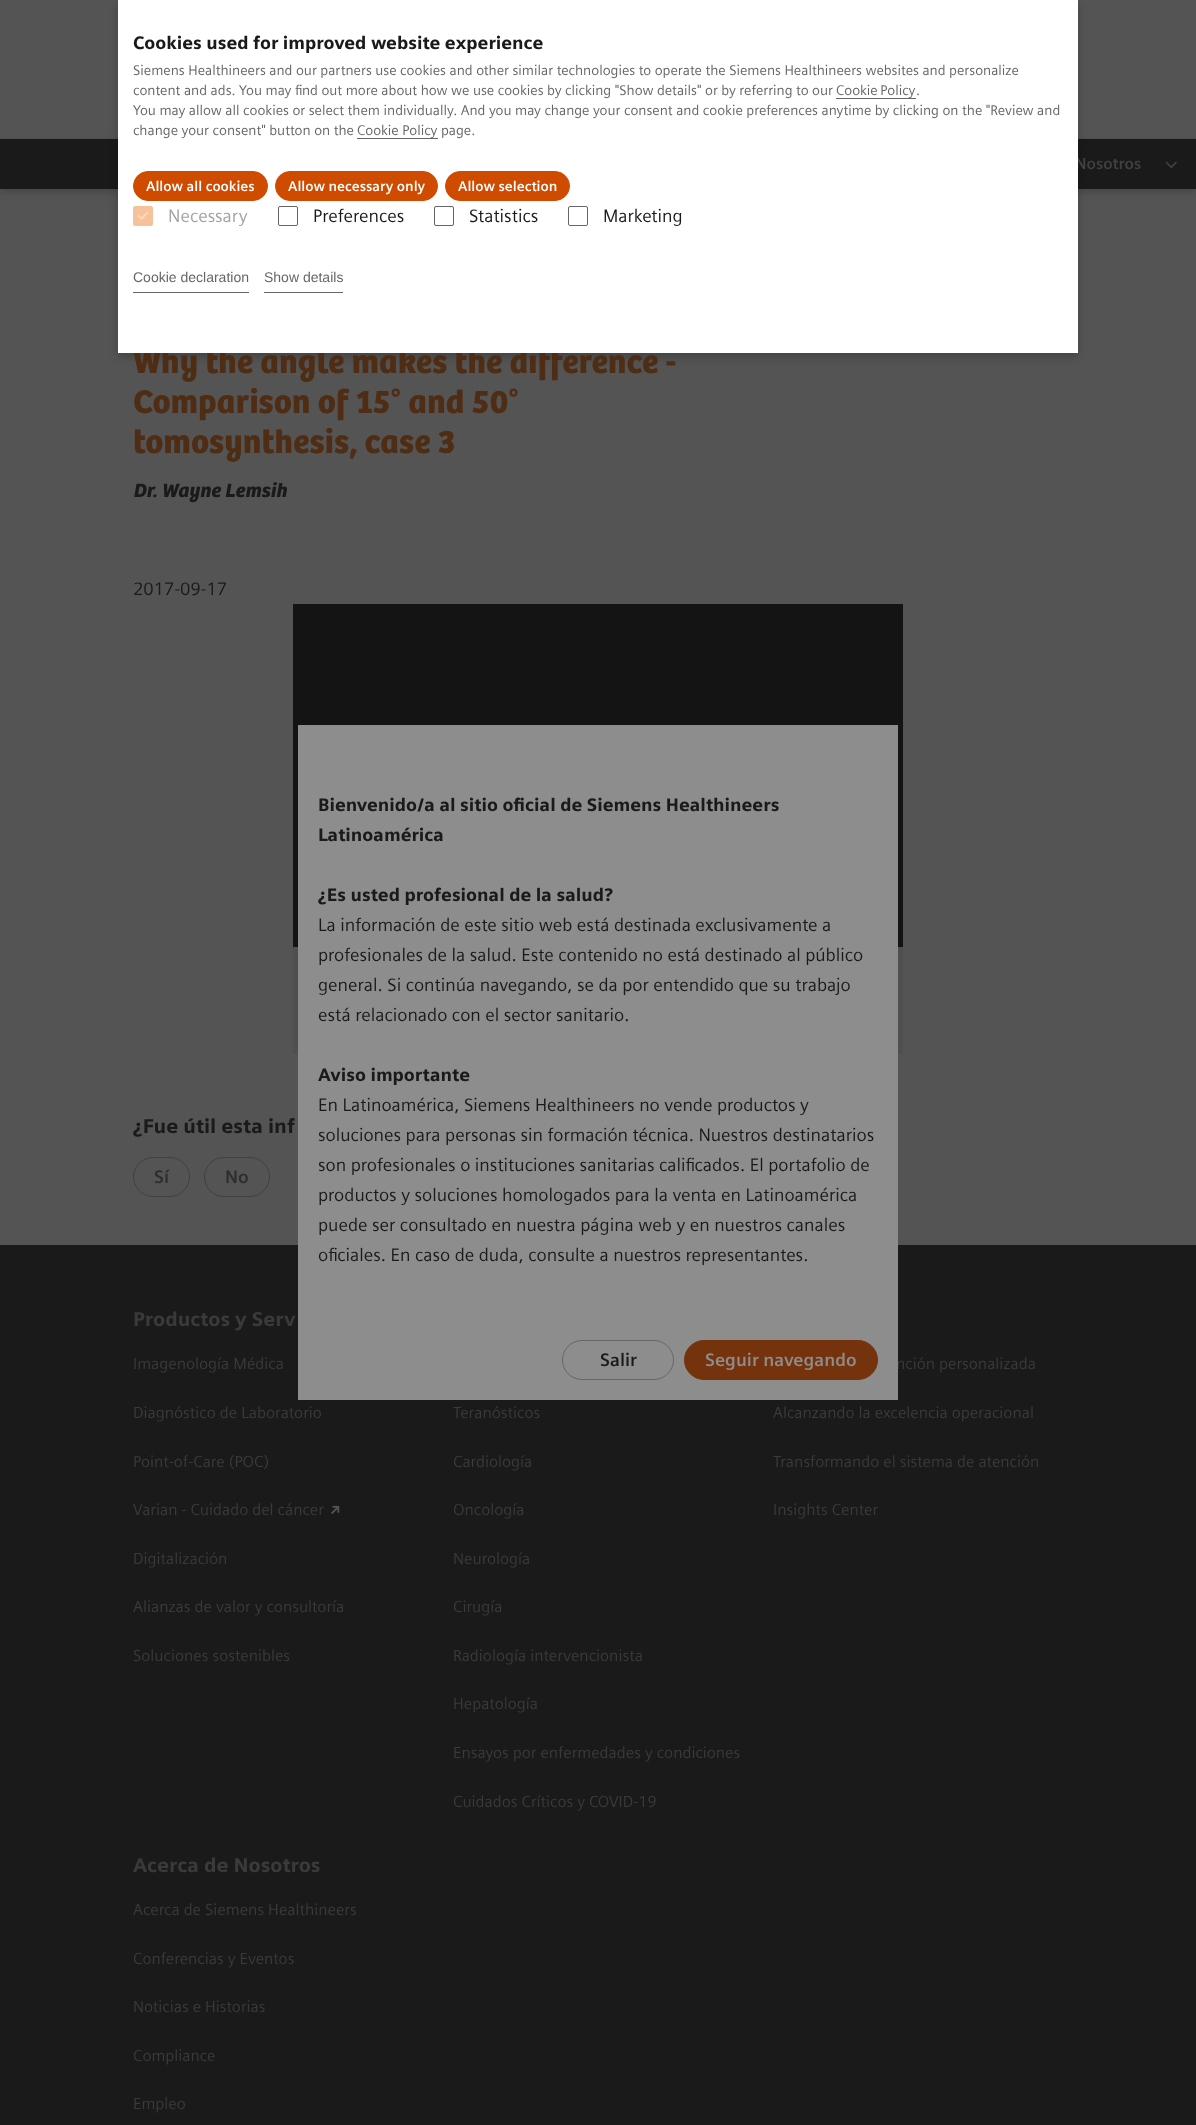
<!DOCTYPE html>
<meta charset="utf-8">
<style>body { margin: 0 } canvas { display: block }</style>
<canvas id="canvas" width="1196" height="2125"></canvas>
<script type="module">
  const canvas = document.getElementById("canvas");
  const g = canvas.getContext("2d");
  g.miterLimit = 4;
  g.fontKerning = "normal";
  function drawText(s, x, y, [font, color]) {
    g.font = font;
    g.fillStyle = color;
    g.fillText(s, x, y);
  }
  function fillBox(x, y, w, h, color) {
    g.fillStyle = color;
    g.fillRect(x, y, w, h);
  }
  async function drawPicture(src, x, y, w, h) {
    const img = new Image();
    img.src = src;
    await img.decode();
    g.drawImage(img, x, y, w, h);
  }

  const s1 = ["bold 16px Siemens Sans", "#414141"];
  const s2 = ["bold 34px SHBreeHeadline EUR", "#4F2D14"];
  const s3 = ["900 18px Siemens Sans", "#1A1A1A"];
  const s4 = ["14px Siemens Sans", "#666666"];
  const s5 = ["bold 14px Siemens Sans", "#FFFFFF"];
  const s6 = ["18px Siemens Sans", "#A3A3A3"];
  const s7 = ["18px Siemens Sans", "#1A1A1A"];
  const s8 = ["14px Liberation Sans", "#666666"];
  const s9 = ["italic 20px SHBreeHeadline", "#1A1A1A"];
  const s10 = ["900 20px Siemens Sans", "#1A1A1A"];
  const s11 = ["bold 18px Siemens Sans", "#2D2D2D"];
  const s12 = ["16px Siemens Sans", "#3A3A3A"];
  const s13 = ["bold 18px Siemens Sans", "#1A1A1A"];
  const s14 = ["bold 18px Siemens Sans", "#8D8D8D"];
  const s15 = ["900 20px Siemens Sans", "#3A3A3A"];

  fillBox(0, 0, 1196, 2125, "#545454");
  fillBox(0, 138, 1196, 1, "#4F4F4F");
  g.fillStyle = "rgba(27, 27, 27, 0.2)";
  g.filter = "blur(3.5px)";
  g.beginPath();
  g.rect(0, 143, 1196, 50);
  g.fill();
  g.filter = "none";
  fillBox(0, 139, 1196, 50, "#1A1A1A");
  g.fillStyle = "rgba(0, 0, 0, 0.2)";
  g.filter = "blur(4.5px)";
  g.beginPath();
  g.rect(118, 4, 960, 353);
  g.fill();
  g.filter = "none";
  drawText("Nosotros", 1075, 169, s1);
  drawText("Why the angle makes the difference -", 133, 373, s2);
  fillBox(118, 0, 960, 353, "#FFFFFF");
  drawText("Cookies used for improved website experience", 133, 49, s3);
  drawText("Siemens Healthineers and our partners use cookies and other similar technologies to operate the Siemens Healthineers websites and personalize", 133, 75, s4);
  drawText("content and ads. You may find out more about how we use cookies by clicking \"Show details\" or by referring to our", 133, 95, s4);
  fillBox(836, 98, 80, 1, "#666666");
  g.wordSpacing = "-1px";
  drawText("Cookie Policy", 836, 95, s4);
  g.wordSpacing = "0px";
  drawText(".", 916, 95, s4);
  drawText("You may allow all cookies or select them individually. And you may change your consent and cookie preferences anytime by clicking on the \"Review and", 133, 115, s4);
  drawText("change your consent\" button on the", 133, 135, s4);
  fillBox(357, 138, 81, 1, "#666666");
  drawText("Cookie Policy page.", 357, 135, s4);
  g.fillStyle = "#CF4B00";
  g.beginPath();
  g.roundRect(133.5, 171.5, 134, 29, 14.5);
  g.fill();
  g.strokeStyle = "#CF4B00";
  g.stroke();
  drawText("Allow all cookies", 146, 191, s5);
  g.fillStyle = "#CF4B00";
  g.beginPath();
  g.roundRect(275.5, 171.5, 162, 29, 14.5);
  g.fill();
  g.stroke();
  drawText("Allow necessary only", 288, 191, s5);
  g.fillStyle = "#CF4B00";
  g.beginPath();
  g.roundRect(445.5, 171.5, 124, 29, 14.5);
  g.fill();
  g.stroke();
  drawText("Allow selection", 458, 191, s5);
  g.fillStyle = "#F7C29A";
  g.beginPath();
  g.roundRect(133.5, 206.5, 19, 19, 1.5);
  g.fill();
  g.strokeStyle = "#F7C29A";
  g.stroke();
  await drawPicture("pic1.png", 137, 212, 12, 8);
  drawText("Necessary", 168, 222, s6);
  g.beginPath();
  g.roundRect(278.5, 206.5, 19, 19, 1.5);
  g.strokeStyle = "#666666";
  g.stroke();
  drawText("Preferences", 313, 222, s7);
  g.beginPath();
  g.roundRect(434.5, 206.5, 19, 19, 1.5);
  g.stroke();
  drawText("Statistics", 469, 222, s7);
  g.beginPath();
  g.roundRect(568.5, 206.5, 19, 19, 1.5);
  g.stroke();
  drawText("Marketing", 603, 222, s7);
  fillBox(133, 292, 116, 1, "#666666");
  drawText("Cookie declaration", 133, 282, s8);
  fillBox(264, 292, 79, 1, "#666666");
  drawText("Show details", 264, 282, s8);
  await drawPicture("pic2.png", 1165, 161, 12, 8);
  drawText("Comparison of 15° and 50°", 133, 413, s2);
  drawText("tomosynthesis, case 3", 133, 453, s2);
  drawText("Dr. Wayne Lemsih", 133, 497, s9);
  drawText("2017-09-17", 133, 595, s7);
  fillBox(293, 604, 610, 343, "#141414");
  fillBox(293, 947, 610, 107, "#4F4F4F");
  drawText("¿Fue útil esta inf", 133, 1133, s10);
  g.beginPath();
  g.roundRect(133.5, 1157.5, 56, 39, 19.5);
  g.strokeStyle = "#414141";
  g.stroke();
  drawText("Sí", 154, 1183, s11);
  g.beginPath();
  g.roundRect(204.5, 1157.5, 65, 39, 19.5);
  g.stroke();
  drawText("No", 225, 1183, s11);
  fillBox(0, 1245, 1196, 880, "#1A1A1A");
  drawText("nción personalizada", 896, 1369, s12);
  fillBox(298, 725, 600, 675, "#8D8D8D");
  drawText("Bienvenido/a al sitio oficial de Siemens Healthineers", 318, 811, s3);
  drawText("Latinoamérica", 318, 841, s3);
  drawText("¿Es usted profesional de la salud?", 318, 901, s3);
  drawText("La información de este sitio web está destinada exclusivamente a", 318, 931, s7);
  drawText("profesionales de la salud. Este contenido no está destinado al público", 318, 961, s7);
  drawText("general. Si continúa navegando, se da por entendido que su trabajo", 318, 991, s7);
  drawText("está relacionado con el sector sanitario.", 318, 1021, s7);
  drawText("Aviso importante", 318, 1081, s3);
  drawText("En Latinoamérica, Siemens Healthineers no vende productos y", 318, 1111, s7);
  drawText("soluciones para personas sin formación técnica. Nuestros destinatarios", 318, 1141, s7);
  drawText("son profesionales o instituciones sanitarias calificados. El portafolio de", 318, 1171, s7);
  drawText("productos y soluciones homologados para la venta en Latinoamérica", 318, 1201, s7);
  drawText("puede ser consultado en nuestra página web y en nuestros canales", 318, 1231, s7);
  drawText("oficiales. En caso de duda, consulte a nuestros representantes.", 318, 1261, s7);
  g.beginPath();
  g.roundRect(562.5, 1340.5, 111, 39, 19.5);
  g.strokeStyle = "#676767";
  g.stroke();
  drawText("Salir", 600, 1366, s13);
  g.fillStyle = "#75330D";
  g.beginPath();
  g.roundRect(684.5, 1340.5, 193, 39, 19.5);
  g.fill();
  g.strokeStyle = "#75330D";
  g.stroke();
  drawText("Seguir navegando", 705, 1366, s14);
  drawText("Productos y Serv", 133, 1326, s15);
  drawText("Imagenología Médica", 133, 1369, s12);
  drawText("Diagnóstico de Laboratorio", 133, 1418, s12);
  drawText("Point-of-Care (POC)", 133, 1467, s12);
  drawText("Varian - Cuidado del cáncer", 133, 1515, s12);
  await drawPicture("pic3.png", 331, 1505, 9, 10);
  drawText("Digitalización", 133, 1564, s12);
  drawText("Alianzas de valor y consultoría", 133, 1612, s12);
  drawText("Soluciones sostenibles", 133, 1661, s12);
  drawText("Teranósticos", 453, 1418, s12);
  drawText("Cardiología", 453, 1467, s12);
  drawText("Oncología", 453, 1515, s12);
  drawText("Neurología", 453, 1564, s12);
  drawText("Cirugía", 453, 1612, s12);
  drawText("Radiología intervencionista", 453, 1661, s12);
  drawText("Hepatología", 453, 1709, s12);
  drawText("Ensayos por enfermedades y condiciones", 453, 1758, s12);
  drawText("Cuidados Críticos y COVID-19", 453, 1807, s12);
  drawText("Alcanzando la excelencia operacional", 773, 1418, s12);
  drawText("Transformando el sistema de atención", 773, 1467, s12);
  drawText("Insights Center", 773, 1515, s12);
  drawText("Acerca de Nosotros", 133, 1872, s15);
  drawText("Acerca de Siemens Healthineers", 133, 1915, s12);
  drawText("Conferencias y Eventos", 133, 1964, s12);
  drawText("Noticias e Historias", 133, 2012, s12);
  drawText("Compliance", 133, 2061, s12);
  drawText("Empleo", 133, 2109, s12);
</script>
